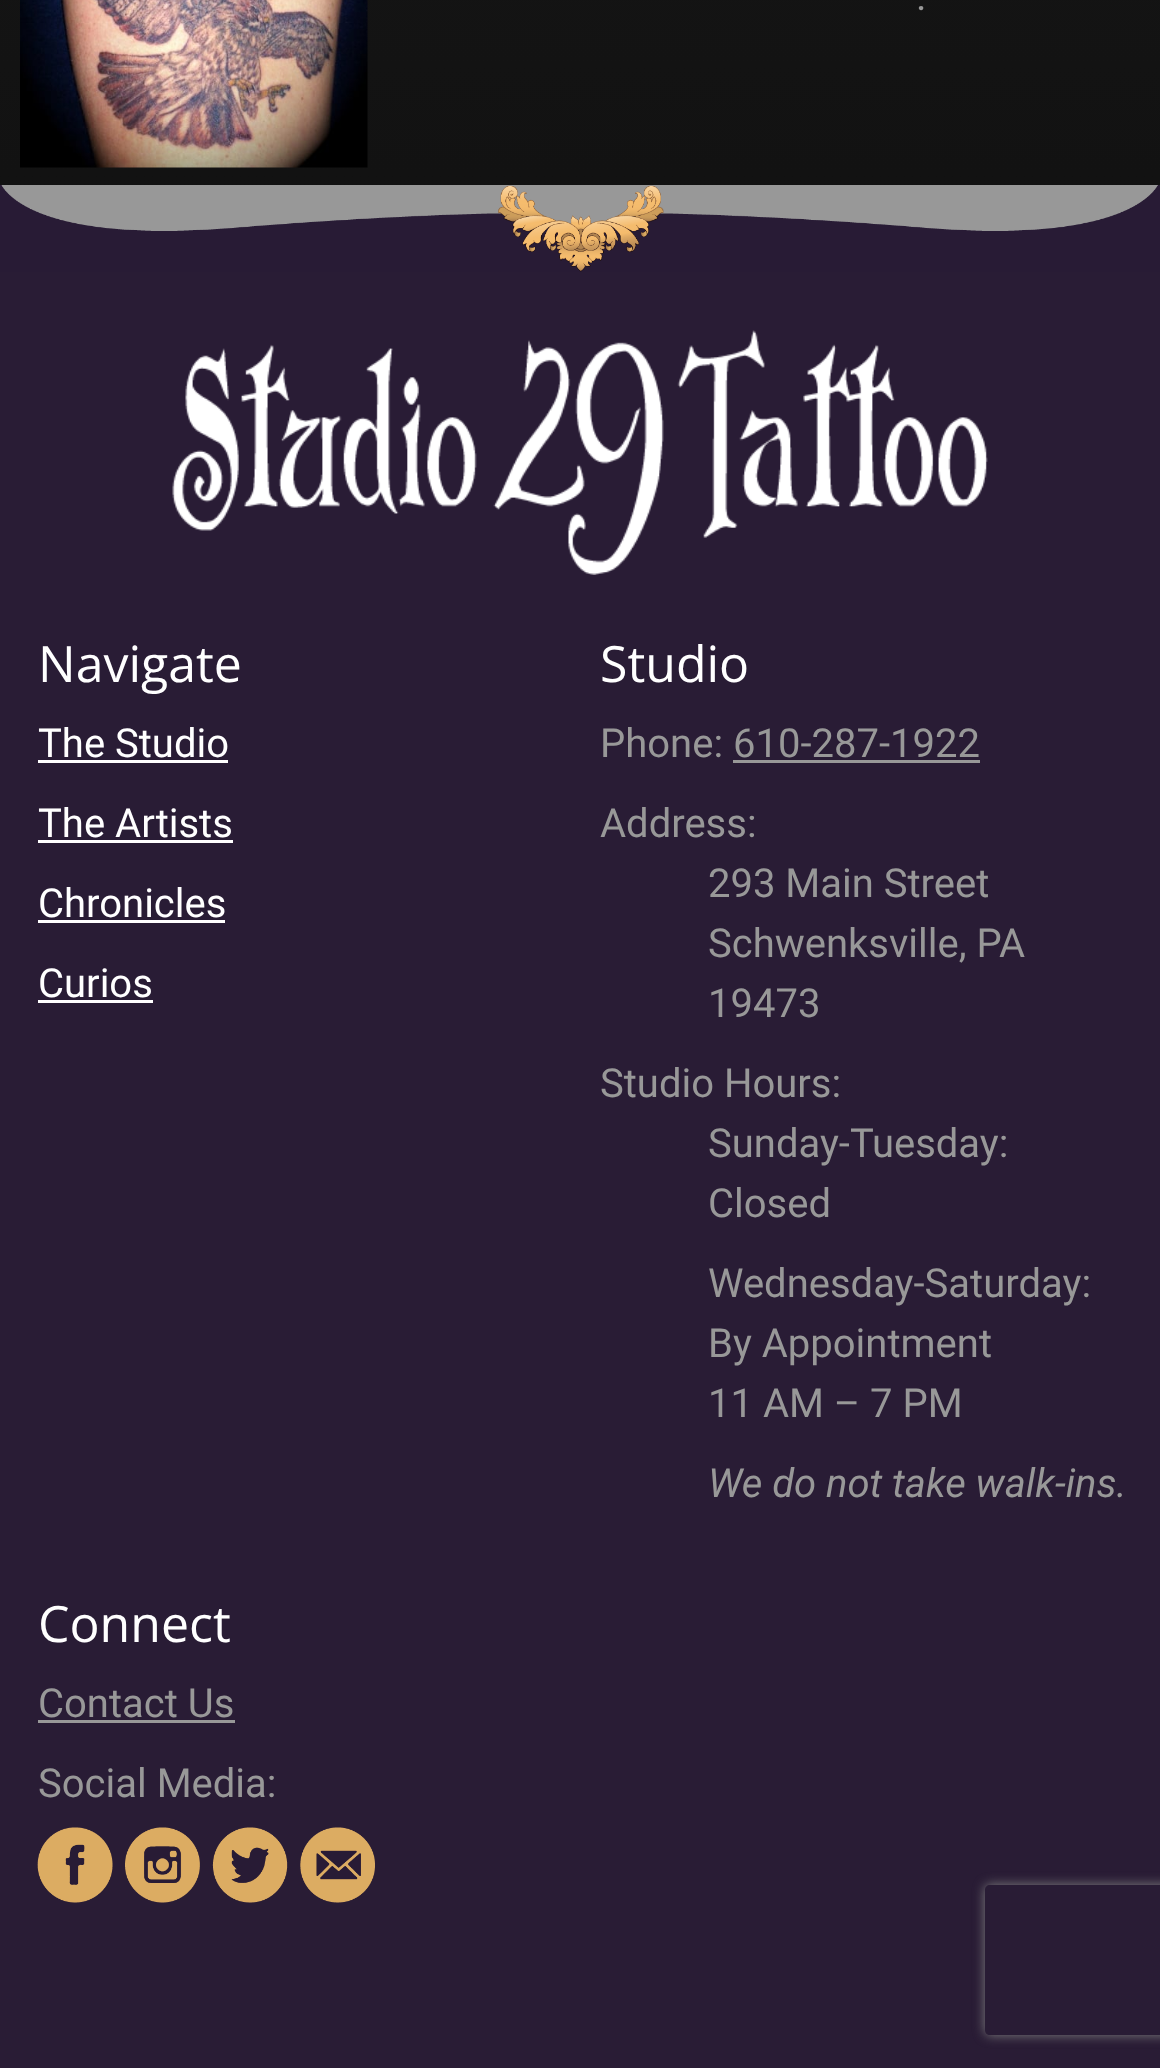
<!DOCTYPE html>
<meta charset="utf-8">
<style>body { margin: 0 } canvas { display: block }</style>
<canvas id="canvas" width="1160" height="2068"></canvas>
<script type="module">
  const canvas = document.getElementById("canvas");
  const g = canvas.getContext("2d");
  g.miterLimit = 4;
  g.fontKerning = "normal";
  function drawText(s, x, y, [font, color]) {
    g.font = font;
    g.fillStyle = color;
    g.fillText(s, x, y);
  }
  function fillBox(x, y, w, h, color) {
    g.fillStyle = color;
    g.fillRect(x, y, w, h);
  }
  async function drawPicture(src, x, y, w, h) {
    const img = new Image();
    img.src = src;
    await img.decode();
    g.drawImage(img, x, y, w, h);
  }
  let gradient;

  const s1 = ["40px Roboto", "#989898"];
  const s2 = ["50px Open Sans", "#FFFFFF"];
  const s3 = ["40px Roboto", "#FFFFFF"];
  const s4 = ["italic 40px Roboto", "#989898"];

  fillBox(0, 0, 1160, 2068, "#FFFFFF");
  gradient = g.createLinearGradient(580, -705, 580, 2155);
  gradient.addColorStop(0, "#1A1A1A");
  gradient.addColorStop(1, "#000000");
  g.fillStyle = gradient;
  g.fillRect(0, 0, 1160, 185);
  await drawPicture("pic1.png", 20, 0, 348, 168);
  drawText(".", 916, 10, s1);
  fillBox(1, 185, 1158, 46, "#989898");
  await drawPicture("pic2.png", 0, 185, 1160, 87);
  fillBox(0, 272, 1160, 1796, "#291C35");
  await drawPicture("pic3.png", 172, 330, 816, 245);
  drawText("Navigate", 38, 682, s2);
  drawText("The Studio", 38, 757, s3);
  fillBox(38, 760, 190, 3, "#FFFFFF");
  drawText("The Artists", 38, 837, s3);
  fillBox(38, 840, 195, 3, "#FFFFFF");
  drawText("Chronicles", 38, 917, s3);
  fillBox(38, 920, 187, 3, "#FFFFFF");
  drawText("Curios", 38, 997, s3);
  fillBox(38, 1000, 115, 3, "#FFFFFF");
  drawText("Studio", 600, 682, s2);
  drawText("Phone: 610-287-1922", 600, 757, s1);
  fillBox(733, 760, 247, 3, "#989898");
  drawText("Address:", 600, 837, s1);
  drawText("293 Main Street", 708, 897, s1);
  drawText("Schwenksville, PA", 708, 957, s1);
  drawText("19473", 708, 1017, s1);
  drawText("Studio Hours:", 600, 1097, s1);
  drawText("Sunday-Tuesday:", 708, 1157, s1);
  drawText("Closed", 708, 1217, s1);
  drawText("Wednesday-Saturday:", 708, 1297, s1);
  drawText("By Appointment", 708, 1357, s1);
  drawText("11 AM – 7 PM", 708, 1417, s1);
  drawText("We do not take walk-ins.", 708, 1497, s4);
  drawText("Connect", 38, 1642, s2);
  drawText("Contact Us", 38, 1717, s1);
  fillBox(38, 1720, 197, 3, "#989898");
  drawText("Social Media:", 38, 1797, s1);
  await drawPicture("pic4.png", 37, 1827, 76, 76);
  await drawPicture("pic5.png", 125, 1827, 75, 76);
  await drawPicture("pic6.png", 212, 1827, 76, 76);
  await drawPicture("pic7.png", 300, 1827, 75, 76);
  g.save();
  g.beginPath();
  g.moveTo(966, 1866);
  g.lineTo(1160, 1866);
  g.lineTo(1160, 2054);
  g.lineTo(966, 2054);
  g.closePath();
  g.moveTo(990, 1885);
  g.lineTo(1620, 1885);
  g.bezierCurveTo(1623, 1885, 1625, 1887, 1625, 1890);
  g.lineTo(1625, 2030);
  g.bezierCurveTo(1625, 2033, 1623, 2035, 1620, 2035);
  g.lineTo(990, 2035);
  g.bezierCurveTo(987, 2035, 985, 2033, 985, 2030);
  g.lineTo(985, 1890);
  g.bezierCurveTo(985, 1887, 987, 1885, 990, 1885);
  g.closePath();
  g.clip("evenodd");
  g.fillStyle = "#808080";
  g.filter = "blur(6px)";
  g.beginPath();
  g.roundRect(985, 1885, 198, 150, 5);
  g.fill();
  g.filter = "none";
  g.restore();
</script>
